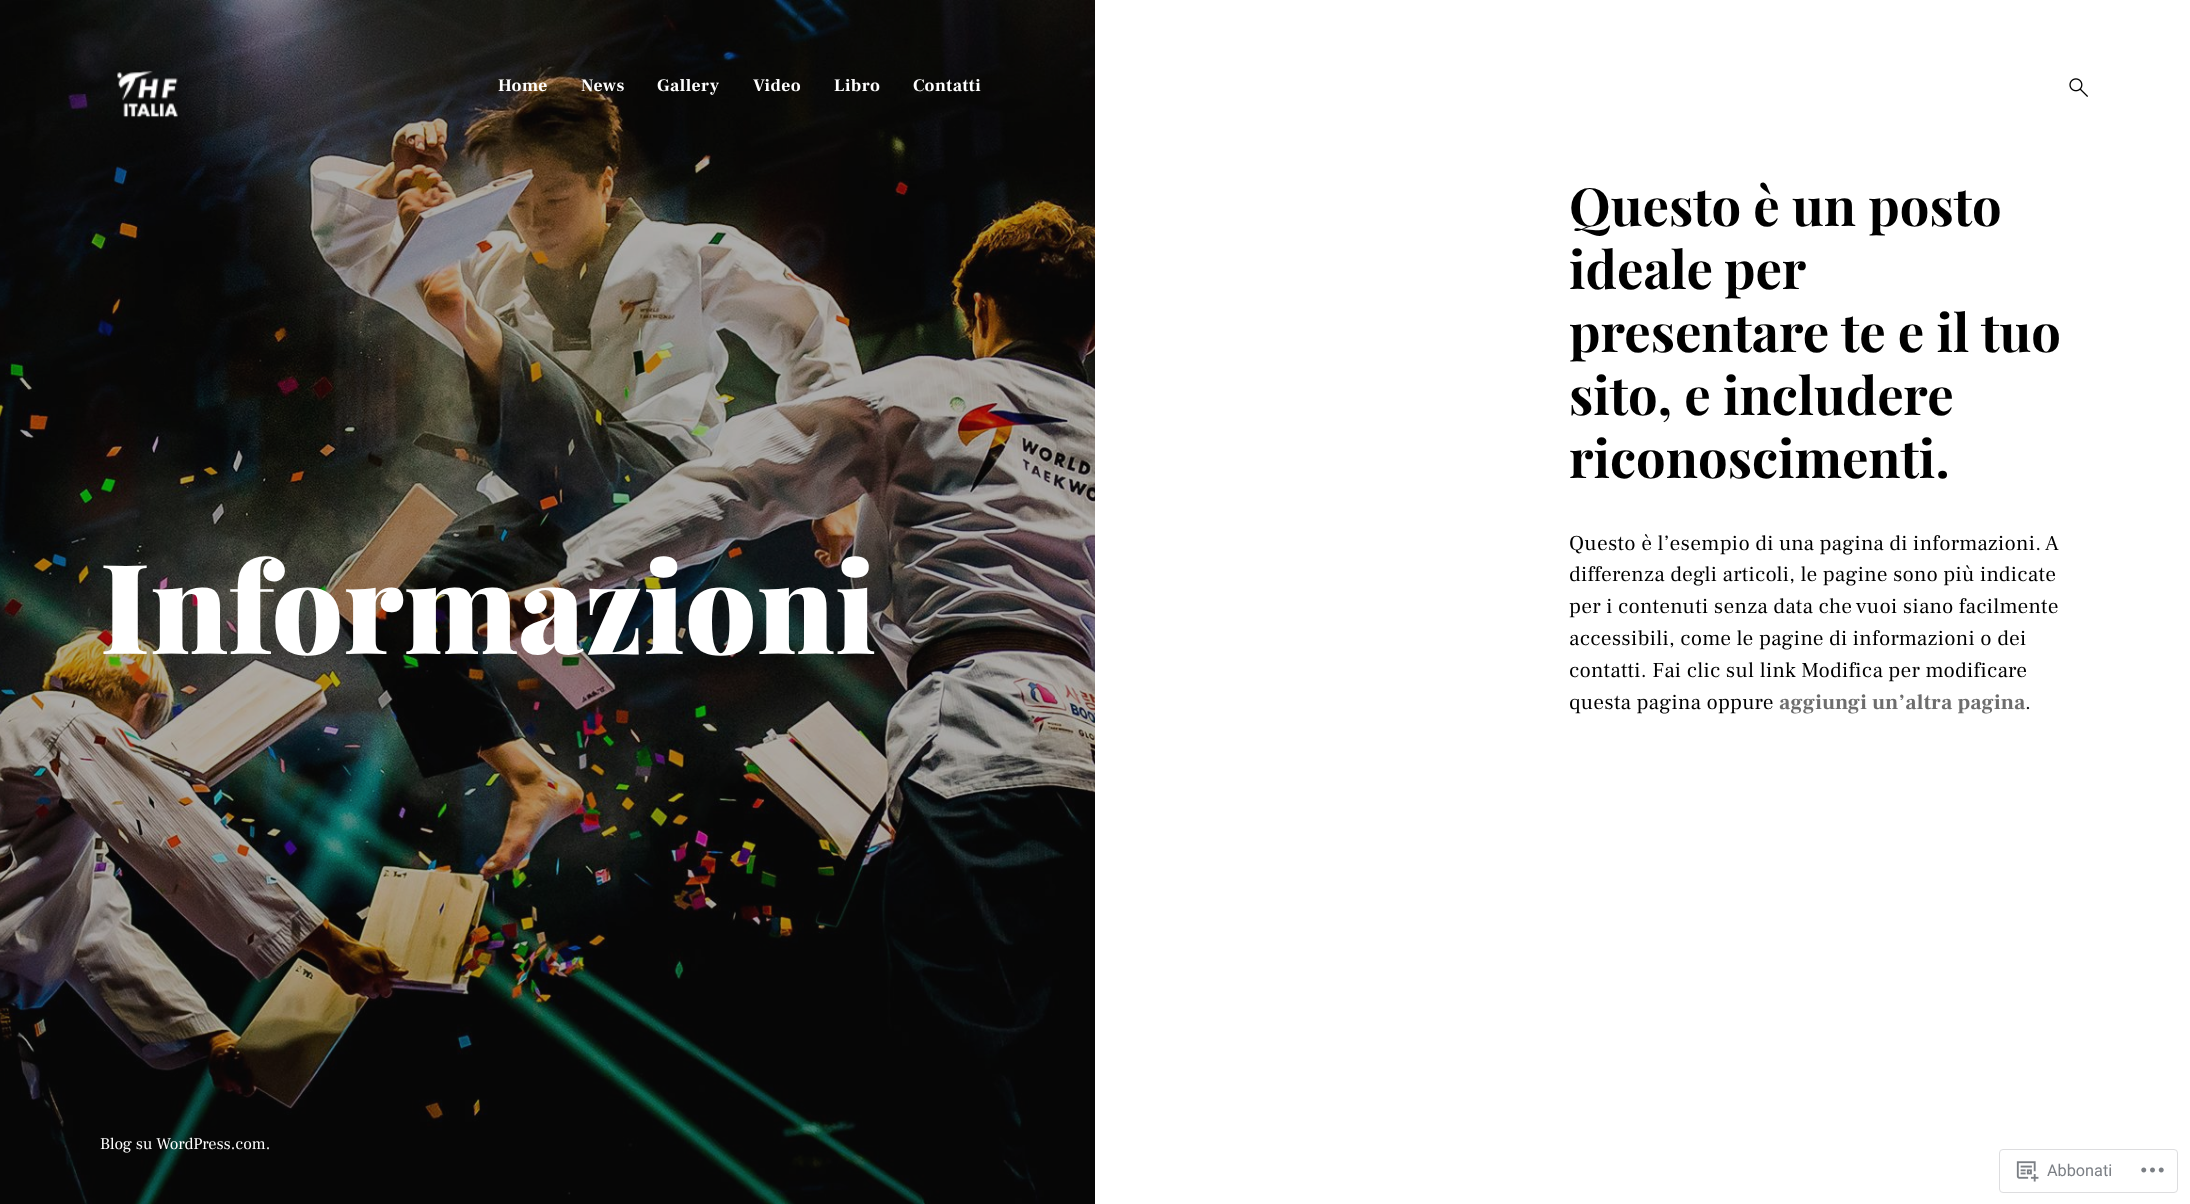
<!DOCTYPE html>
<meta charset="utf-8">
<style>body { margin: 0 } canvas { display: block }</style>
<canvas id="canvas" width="2190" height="1204"></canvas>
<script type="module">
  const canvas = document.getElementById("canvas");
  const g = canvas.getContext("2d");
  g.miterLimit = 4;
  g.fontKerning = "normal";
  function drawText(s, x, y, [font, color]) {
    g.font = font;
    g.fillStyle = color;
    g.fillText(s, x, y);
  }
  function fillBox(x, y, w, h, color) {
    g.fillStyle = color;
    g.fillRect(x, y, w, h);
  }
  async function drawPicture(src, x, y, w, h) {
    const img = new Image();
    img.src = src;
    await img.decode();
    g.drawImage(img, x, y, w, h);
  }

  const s1 = ["bold 17.5px Frank Ruhl Libre", "#FFFFFF"];
  const s2 = ["900 125px Playfair Display", "#FFFFFF"];
  const s3 = ["bold 52.5px Playfair Display", "#000000"];
  const s4 = ["21.25px Frank Ruhl Libre", "#000000"];
  const s5 = ["bold 21.25px Frank Ruhl Libre", "#6D6D6D"];
  const s6 = ["16.25px Frank Ruhl Libre", "#FFFFFF"];
  const s7 = ["16.25px Roboto", "#7B7F85"];

  fillBox(0, 0, 2190, 1204, "#FFFFFF");
  await drawPicture("pic3.png", 0, 0, 1095, 1204);
  await drawPicture("pic1.png", 117, 70, 61, 48);
  g.letterSpacing = "0.5px";
  drawText("Home", 498, 91, s1);
  drawText("News", 581, 91, s1);
  drawText("Gallery", 657, 91, s1);
  drawText("Video", 753, 91, s1);
  drawText("Libro", 834, 91, s1);
  drawText("Contatti", 913, 91, s1);
  await drawPicture("pic2.png", 2069, 78, 19, 19);
  g.letterSpacing = "0px";
  drawText("Informazioni", 100, 654, s2);
  drawText("Questo è un posto", 1569, 226, s3);
  g.wordSpacing = "-1px";
  drawText("ideale per", 1569, 289, s3);
  g.wordSpacing = "0px";
  drawText("presentare te e il tuo", 1569, 352, s3);
  drawText("sito, e includere", 1569, 415, s3);
  drawText("riconoscimenti.", 1569, 478, s3);
  g.letterSpacing = "0.25px";
  drawText("Questo è l’esempio di una pagina di informazioni. A", 1569, 550, s4);
  drawText("differenza degli articoli, le pagine sono più indicate", 1569, 581, s4);
  drawText("per i contenuti senza data che vuoi siano facilmente", 1569, 613, s4);
  drawText("accessibili, come le pagine di informazioni o dei", 1569, 645, s4);
  drawText("contatti. Fai clic sul link Modifica per modificare", 1569, 677, s4);
  drawText("questa pagina oppure", 1569, 709, s4);
  drawText("aggiungi un’altra pagina", 1779, 709, s5);
  drawText(".", 2025, 709, s4);
  g.letterSpacing = "0px";
  drawText("Blog su WordPress.com.", 100, 1149, s6);
  g.beginPath();
  g.roundRect(1999.5, 1149.5, 178, 43, 3.5);
  g.strokeStyle = "#DDDDDF";
  g.stroke();
  await drawPicture("pic4.png", 2016, 1161, 23, 21);
  drawText("Abbonati", 2047, 1176, s7);
  await drawPicture("pic5.png", 2141, 1167, 23, 6);
</script>
